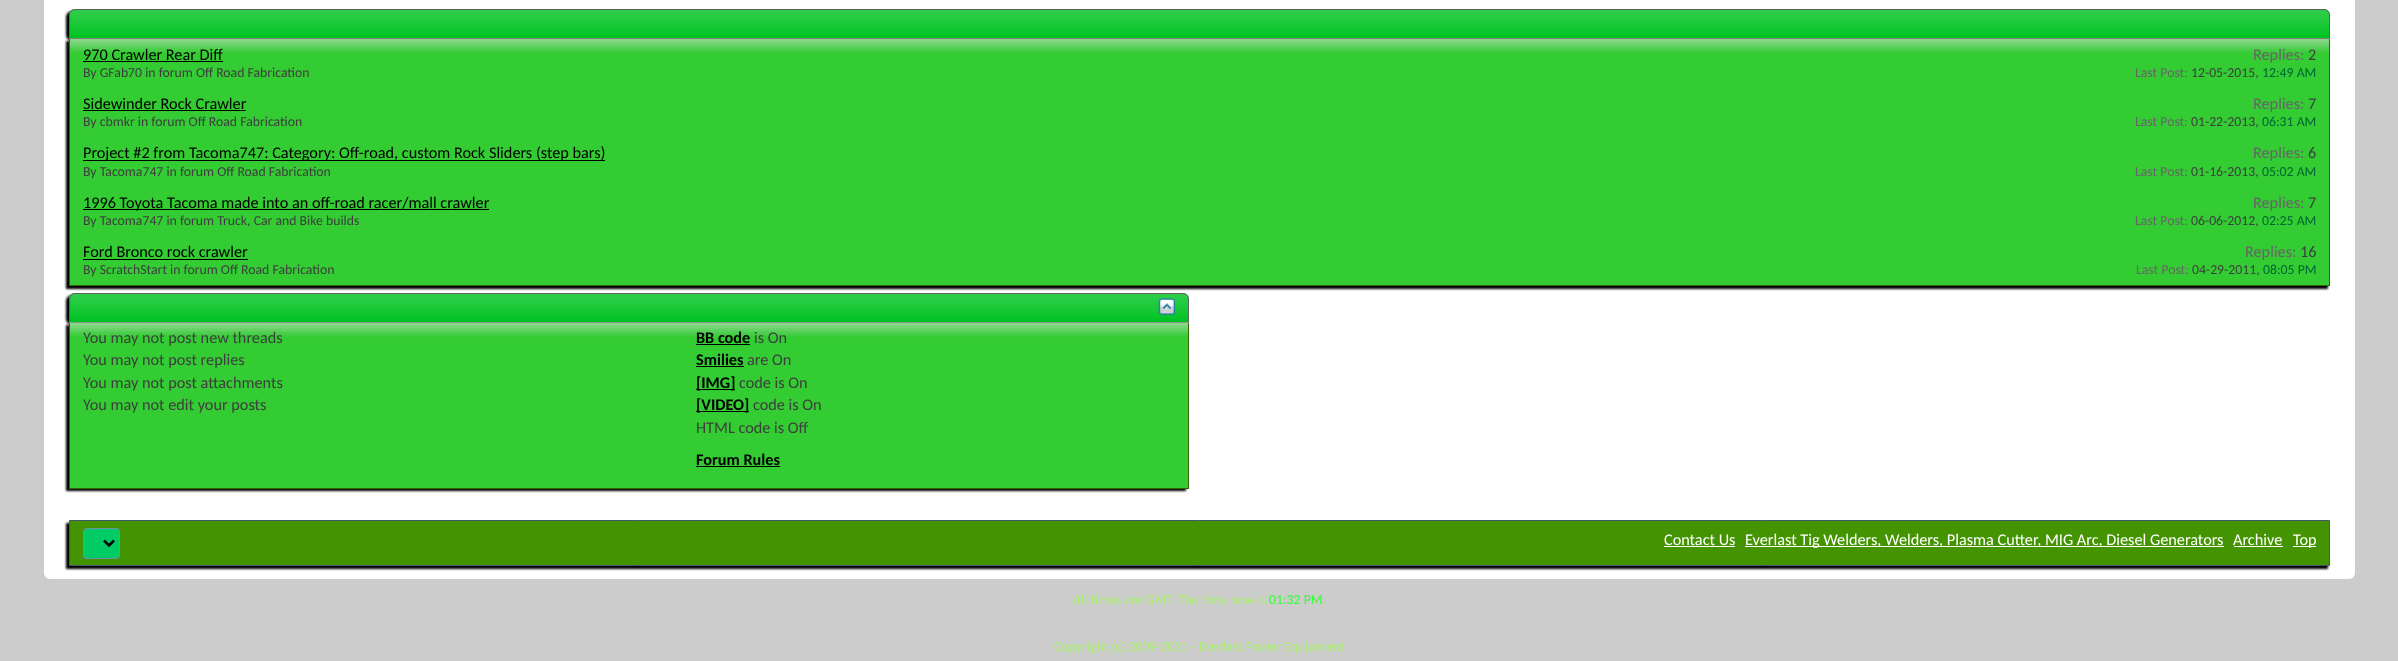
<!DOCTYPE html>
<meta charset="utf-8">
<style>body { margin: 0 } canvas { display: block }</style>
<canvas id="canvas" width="2398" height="661"></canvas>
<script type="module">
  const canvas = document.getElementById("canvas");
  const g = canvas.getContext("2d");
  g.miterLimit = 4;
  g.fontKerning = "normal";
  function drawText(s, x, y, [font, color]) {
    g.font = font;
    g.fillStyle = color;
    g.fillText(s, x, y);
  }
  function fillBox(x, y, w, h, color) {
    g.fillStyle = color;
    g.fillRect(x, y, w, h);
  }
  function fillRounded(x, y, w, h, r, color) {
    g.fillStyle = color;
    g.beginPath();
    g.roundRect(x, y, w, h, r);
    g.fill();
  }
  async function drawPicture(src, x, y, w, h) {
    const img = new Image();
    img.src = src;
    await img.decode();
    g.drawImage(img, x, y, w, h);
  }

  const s1 = ["16.25px Carlito", "#000000"];
  const s2 = ["13.75px Carlito", "#3E3E3E"];
  const s3 = ["16.25px Carlito", "#666666"];
  const s4 = ["16.25px Carlito", "#3E3E3E"];
  const s5 = ["13.75px Carlito", "#666666"];
  const s6 = ["13.75px Carlito", "#006633"];
  const s7 = ["bold 16.25px Carlito", "#000000"];
  const s8 = ["16.25px Carlito", "#FFFFFF"];
  const s9 = ["13.75px Carlito", "#A9F16C"];
  const s10 = ["13.75px Carlito", "#33FF33"];

  fillBox(0, 0, 2398, 661, "#CCCCCC");
  fillRounded(44, -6, 2311, 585, 6, "#FFFFFF");
  g.fillStyle = "#000000";
  g.filter = "blur(1px)";
  g.beginPath();
  g.roundRect(66, 11, 2262, 30, 6);
  g.fill();
  g.filter = "none";
  g.fillStyle = "#00C322";
  g.beginPath();
  g.roundRect(69, 9, 2261, 30, [6, 6, 0, 0]);
  g.fill();
  await drawPicture("pic1.png", 69, 9, 2261, 26);
  g.beginPath();
  g.roundRect(69.5, 9.5, 2260, 29, [5.5, 5.5, 0, 0]);
  g.strokeStyle = "#606060";
  g.stroke();
  g.fillStyle = "#000000";
  g.filter = "blur(1px)";
  g.beginPath();
  g.rect(66, 41, 2262, 248);
  g.fill();
  g.filter = "none";
  fillBox(70, 39, 2259, 246, "#33CC33");
  await drawPicture("pic2.png", 68, 38, 2262, 15);
  fillBox(2329, 39, 1, 247, "#336600");
  fillBox(69, 285, 2261, 1, "#336600");
  fillBox(69, 39, 1, 247, "#336600");
  drawText("970 Crawler Rear Diff", 83, 60, s1);
  fillBox(83, 61, 140, 1, "#000000");
  drawText("By GFab70 in forum Off Road Fabrication", 83, 77, s2);
  drawText("Replies:", 2253, 60, s3);
  drawText("2", 2308, 60, s4);
  drawText("Last Post:", 2135, 77, s5);
  drawText("12-05-2015,", 2191, 77, s2);
  drawText("12:49 AM", 2262, 77, s6);
  drawText("Sidewinder Rock Crawler", 83, 109, s1);
  fillBox(83, 110, 163, 1, "#000000");
  drawText("By cbmkr in forum Off Road Fabrication", 83, 126, s2);
  drawText("Replies:", 2253, 109, s3);
  drawText("7", 2308, 109, s4);
  drawText("Last Post:", 2135, 126, s5);
  drawText("01-22-2013,", 2191, 126, s2);
  drawText("06:31 AM", 2262, 126, s6);
  fillBox(83, 160, 522, 1, "#000000");
  drawText("Project #2 from Tacoma747: Category: Off-road, custom Rock Sliders (step bars)", 83, 158, s1);
  drawText("By Tacoma747 in forum Off Road Fabrication", 83, 176, s2);
  drawText("Replies:", 2253, 158, s3);
  drawText("6", 2308, 158, s4);
  drawText("Last Post:", 2135, 176, s5);
  drawText("01-16-2013,", 2191, 176, s2);
  drawText("05:02 AM", 2262, 176, s6);
  fillBox(83, 209, 406, 1, "#000000");
  drawText("1996 Toyota Tacoma made into an off-road racer/mall crawler", 83, 208, s1);
  drawText("By Tacoma747 in forum Truck, Car and Bike builds", 83, 225, s2);
  drawText("Replies:", 2253, 208, s3);
  drawText("7", 2308, 208, s4);
  drawText("Last Post:", 2135, 225, s5);
  drawText("06-06-2012,", 2191, 225, s2);
  drawText("02:25 AM", 2262, 225, s6);
  drawText("Ford Bronco rock crawler", 83, 257, s1);
  fillBox(83, 259, 165, 1, "#000000");
  drawText("By ScratchStart in forum Off Road Fabrication", 83, 274, s2);
  drawText("Replies:", 2245, 257, s3);
  drawText("16", 2300, 257, s4);
  drawText("Last Post:", 2136, 274, s5);
  drawText("04-29-2011,", 2192, 274, s2);
  drawText("08:05 PM", 2263, 274, s6);
  g.fillStyle = "#000000";
  g.filter = "blur(1px)";
  g.beginPath();
  g.roundRect(66, 295, 1120, 30, 6);
  g.fill();
  g.filter = "none";
  g.fillStyle = "#00C322";
  g.beginPath();
  g.roundRect(69, 293, 1120, 30, [6, 6, 0, 0]);
  g.fill();
  await drawPicture("pic3.png", 69, 293, 1120, 26);
  g.beginPath();
  g.roundRect(69.5, 293.5, 1119, 29, [5.5, 5.5, 0, 0]);
  g.stroke();
  await drawPicture("pic4.png", 1158, 298, 17, 17);
  g.fillStyle = "#000000";
  g.filter = "blur(1px)";
  g.beginPath();
  g.rect(66, 325, 1120, 166);
  g.fill();
  g.filter = "none";
  fillBox(70, 323, 1118, 165, "#33CC33");
  await drawPicture("pic5.png", 68, 322, 1121, 15);
  fillBox(1188, 323, 1, 166, "#336600");
  fillBox(69, 488, 1120, 1, "#336600");
  fillBox(69, 323, 1, 166, "#336600");
  drawText("You may not post new threads", 83, 343, s4);
  drawText("You may not post replies", 83, 365, s4);
  drawText("You may not post attachments", 83, 388, s4);
  drawText("You may not edit your posts", 83, 410, s4);
  drawText("BB code", 696, 343, s7);
  fillBox(696, 344, 54, 1, "#000000");
  drawText("is On", 754, 343, s4);
  drawText("Smilies", 696, 365, s7);
  fillBox(696, 366, 48, 1, "#000000");
  drawText("are On", 747, 365, s4);
  fillBox(696, 389, 39, 1, "#000000");
  drawText("[IMG]", 696, 388, s7);
  drawText("code is On", 739, 388, s4);
  fillBox(696, 411, 53, 1, "#000000");
  drawText("[VIDEO]", 696, 410, s7);
  drawText("code is On", 753, 410, s4);
  drawText("HTML code is Off", 696, 433, s4);
  drawText("Forum Rules", 696, 465, s7);
  fillBox(696, 466, 84, 1, "#000000");
  g.filter = "blur(1px)";
  g.beginPath();
  g.rect(66, 523, 2262, 46);
  g.fill();
  g.filter = "none";
  g.fillStyle = "#439400";
  g.beginPath();
  g.rect(69.5, 520.5, 2260, 45);
  g.fill();
  g.strokeStyle = "#425769";
  g.stroke();
  g.fillStyle = "#00CC66";
  g.beginPath();
  g.roundRect(83.5, 528.5, 36, 30, 3.5);
  g.fill();
  g.strokeStyle = "#6B91AB";
  g.stroke();
  g.beginPath();
  g.moveTo(104, 540.5);
  g.lineTo(109, 545.5);
  g.lineTo(114, 540.5);
  g.strokeStyle = "#000000";
  g.lineWidth = 2.5;
  g.stroke();
  drawText("Contact Us", 1664, 545, s8);
  fillBox(1664, 546, 71, 1, "#FFFFFF");
  fillBox(1745, 546, 479, 1, "#FFFFFF");
  drawText("Everlast Tig Welders, Welders, Plasma Cutter, MIG Arc, Diesel Generators", 1745, 545, s8);
  drawText("Archive", 2233, 545, s8);
  fillBox(2234, 546, 49, 1, "#FFFFFF");
  fillBox(2293, 546, 23, 1, "#FFFFFF");
  drawText("Top", 2293, 545, s8);
  drawText("All times are GMT. The time now is", 1073, 604, s9);
  drawText("01:32 PM", 1269, 604, s10);
  drawText(".", 1323, 604, s9);
  drawText("Copyright (c) 2009-2021 - Everlast Power Equipment", 1054, 651, s9);
</script>
